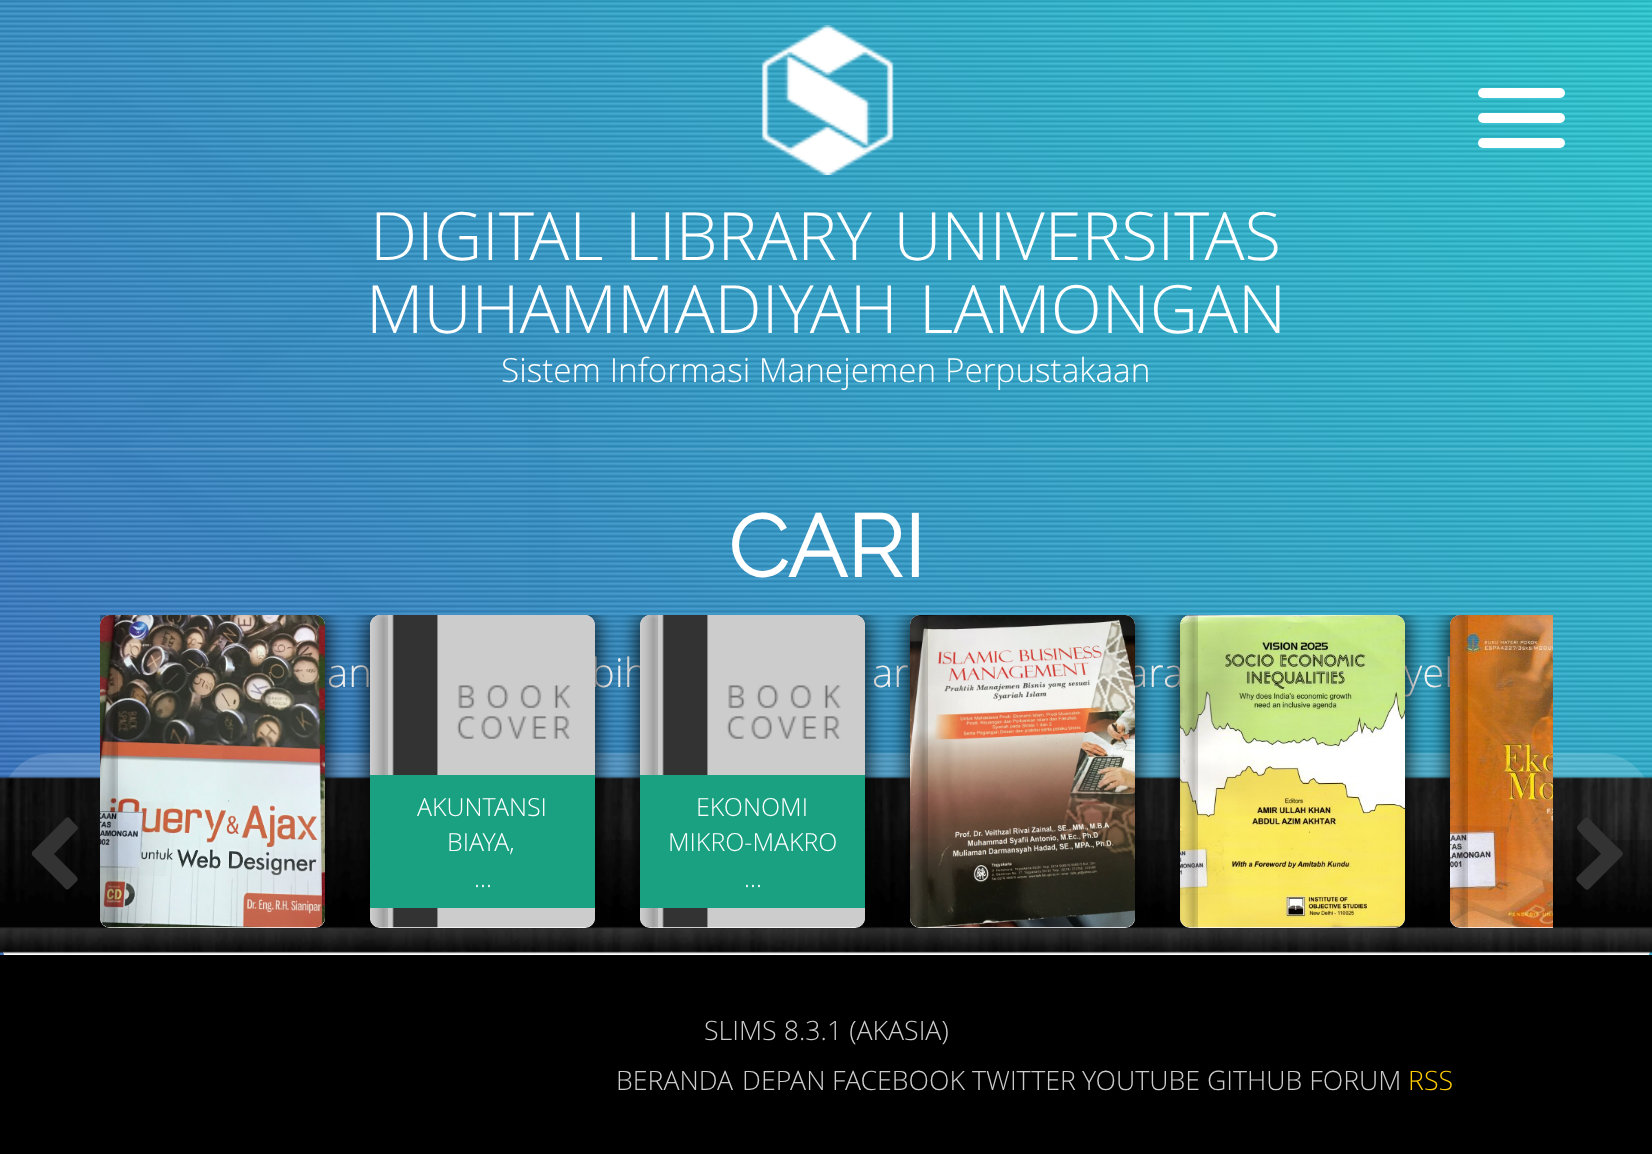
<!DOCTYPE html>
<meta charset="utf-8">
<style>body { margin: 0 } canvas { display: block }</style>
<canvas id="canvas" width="1652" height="1154"></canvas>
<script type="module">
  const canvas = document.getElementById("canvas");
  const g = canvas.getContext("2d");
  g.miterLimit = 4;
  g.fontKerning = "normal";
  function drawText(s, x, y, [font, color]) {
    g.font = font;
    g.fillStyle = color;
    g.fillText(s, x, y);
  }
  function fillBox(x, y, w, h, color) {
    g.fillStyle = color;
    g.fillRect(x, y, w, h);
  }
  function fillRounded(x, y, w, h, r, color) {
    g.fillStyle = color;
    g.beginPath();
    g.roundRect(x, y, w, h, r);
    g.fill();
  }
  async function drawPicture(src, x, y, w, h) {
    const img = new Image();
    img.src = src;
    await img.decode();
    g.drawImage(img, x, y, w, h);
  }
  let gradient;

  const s1 = ["300 66.7px Open Sans", "#FFFFFF"];
  const s2 = ["300 33.3px Open Sans", "#FFFFFF"];
  const s3 = ["bold 87px Raleway", "#FFFFFF"];
  const s4 = ["300 40px Open Sans", "#FFFFFF"];
  const s5 = ["300 25px Open Sans", "#FFFFFF"];
  const s6 = ["300 26.75px Open Sans", "#CCCCCC"];
  const s7 = ["300 26.75px Open Sans", "#FFCC00"];

  fillBox(0, 0, 1652, 1154, "#F1F1F1");
  await drawPicture("pic1.png", 0, 88, 560, 691);
  await drawPicture("pic2.png", 0, 0, 1652, 955);
  gradient = g.createLinearGradient(124, 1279, 1528, -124);
  gradient.addColorStop(0, "rgba(25, 79, 184, 0.75)");
  gradient.addColorStop(1, "rgba(5, 198, 209, 0.75)");
  g.fillStyle = gradient;
  g.fillRect(0, 0, 1652, 955);
  fillBox(0, 448, 1652, 3, "rgba(255, 255, 255, 0.05)");
  fillRounded(1478, 113, 87, 10, 5, "#FFFFFF");
  fillRounded(1478, 88, 87, 10, 5, "#FFFFFF");
  fillRounded(1478, 138, 87, 10, 5, "#FFFFFF");
  await drawPicture("pic3.png", 761, 25, 133, 150);
  g.wordSpacing = "4px";
  drawText("DIGITAL LIBRARY UNIVERSITAS", 370, 260, s1);
  drawText("MUHAMMADIYAH LAMONGAN", 366, 333, s1);
  g.wordSpacing = "0px";
  drawText("Sistem Informasi Manejemen Perpustakaan", 501, 382, s2);
  drawText("CARI", 728, 577, s3);
  drawText("an", 327, 687, s4);
  drawText("bih", 591, 687, s4);
  drawText("ar", 872, 687, s4);
  drawText("ara", 1127, 687, s4);
  drawText("yek", 1404, 687, s4);
  fillRounded(0, 753, 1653, 107, 53.5, "rgba(255, 255, 255, 0.15)");
  fillRounded(0, 885, 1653, 100, 50, "#FFFFFF");
  await drawPicture("pic4.png", 0, 776, 1652, 178);
  gradient = g.createLinearGradient(826, 840, 826, 1028);
  gradient.addColorStop(0, "rgba(0, 0, 0, 0.2)");
  gradient.addColorStop(0.5, "rgba(0, 0, 0, 0)");
  gradient.addColorStop(1, "rgba(0, 0, 0, 0)");
  g.fillStyle = gradient;
  g.fillRect(0, 840, 1652, 36);
  fillBox(0, 955, 1652, 199, "#000000");
  g.save();
  g.beginPath();
  g.rect(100, 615, 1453, 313);
  g.clip();
  g.filter = "blur(12.5px)";
  g.beginPath();
  g.roundRect(100, 615, 225, 313, 10);
  g.fill();
  g.filter = "none";
  g.restore();
  g.fillStyle = "#333333";
  g.beginPath();
  g.moveTo(77, 830);
  g.lineTo(54, 854);
  g.lineTo(73, 873);
  g.bezierCurveTo(80, 880, 79, 879, 72, 886);
  g.bezierCurveTo(66, 892, 67, 890, 60, 883);
  g.lineTo(32, 855);
  g.lineTo(32, 852);
  g.lineTo(66, 818);
  g.bezierCurveTo(68, 816, 71, 819, 72, 821);
  g.lineTo(78, 827);
  g.bezierCurveTo(78, 828, 78, 829, 77, 830);
  g.closePath();
  g.fill();
  fillRounded(100, 615, 225, 313, 10, "#FFFFFF");
  await drawPicture("pic5.png", 100, 615, 225, 313);
  await drawPicture("pic6.png", 100, 615, 225, 313);
  await drawPicture("pic7.png", 100, 615, 18, 313);
  g.save();
  g.beginPath();
  g.rect(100, 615, 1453, 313);
  g.clip();
  g.fillStyle = "#000000";
  g.filter = "blur(12.5px)";
  g.beginPath();
  g.roundRect(370, 615, 225, 313, 10);
  g.fill();
  g.filter = "none";
  g.restore();
  fillRounded(370, 615, 225, 313, 10, "#FFFFFF");
  await drawPicture("pic9.png", 370, 615, 225, 313);
  await drawPicture("pic10.png", 370, 615, 225, 313);
  await drawPicture("pic8.png", 372, 615, 16, 313);
  fillBox(370, 775, 225, 133, "#19A181");
  drawText("AKUNTANSI", 417, 816, s5);
  drawText("BIAYA,", 447, 851, s5);
  drawText("...", 474, 887, s5);
  g.save();
  g.beginPath();
  g.rect(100, 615, 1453, 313);
  g.clip();
  g.fillStyle = "#000000";
  g.filter = "blur(12.5px)";
  g.beginPath();
  g.roundRect(640, 615, 225, 313, 10);
  g.fill();
  g.filter = "none";
  g.restore();
  fillRounded(640, 615, 225, 313, 10, "#FFFFFF");
  await drawPicture("pic12.png", 640, 615, 225, 313);
  await drawPicture("pic13.png", 640, 615, 225, 313);
  await drawPicture("pic11.png", 642, 615, 16, 313);
  fillBox(640, 775, 225, 133, "#19A181");
  drawText("EKONOMI", 696, 816, s5);
  drawText("MIKRO-MAKRO", 668, 851, s5);
  drawText("...", 744, 887, s5);
  g.save();
  g.beginPath();
  g.rect(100, 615, 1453, 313);
  g.clip();
  g.fillStyle = "#000000";
  g.filter = "blur(12.5px)";
  g.beginPath();
  g.roundRect(910, 615, 225, 313, 10);
  g.fill();
  g.filter = "none";
  g.restore();
  fillRounded(910, 615, 225, 313, 10, "#FFFFFF");
  await drawPicture("pic14.png", 910, 615, 225, 313);
  await drawPicture("pic15.png", 910, 615, 225, 313);
  await drawPicture("pic16.png", 910, 615, 18, 313);
  g.save();
  g.beginPath();
  g.rect(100, 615, 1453, 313);
  g.clip();
  g.fillStyle = "#000000";
  g.filter = "blur(12.5px)";
  g.beginPath();
  g.roundRect(1180, 615, 225, 313, 10);
  g.fill();
  g.filter = "none";
  g.restore();
  fillRounded(1180, 615, 225, 313, 10, "#FFFFFF");
  await drawPicture("pic17.png", 1180, 615, 225, 313);
  await drawPicture("pic18.png", 1180, 615, 225, 313);
  await drawPicture("pic19.png", 1180, 615, 18, 313);
  g.save();
  g.beginPath();
  g.rect(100, 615, 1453, 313);
  g.clip();
  g.fillStyle = "#000000";
  g.filter = "blur(12.5px)";
  g.beginPath();
  g.roundRect(1450, 615, 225, 313, 10);
  g.fill();
  g.filter = "none";
  g.restore();
  g.beginPath();
  g.roundRect(1450, 615, 103, 313, [10, 0, 0, 10]);
  g.fill();
  await drawPicture("pic20.png", 1450, 615, 103, 313);
  await drawPicture("pic21.png", 1450, 615, 103, 313);
  await drawPicture("pic22.png", 1450, 615, 18, 313);
  g.fillStyle = "#333333";
  g.beginPath();
  g.moveTo(1622, 856);
  g.lineTo(1589, 889);
  g.bezierCurveTo(1586, 892, 1582, 885, 1580, 884);
  g.bezierCurveTo(1578, 882, 1575, 880, 1577, 877);
  g.lineTo(1601, 854);
  g.bezierCurveTo(1598, 850, 1577, 831, 1577, 828);
  g.bezierCurveTo(1577, 825, 1580, 824, 1581, 822);
  g.bezierCurveTo(1588, 815, 1587, 816, 1594, 824);
  g.lineTo(1616, 846);
  g.bezierCurveTo(1617, 847, 1623, 851, 1623, 854);
  g.closePath();
  g.fill();
  drawText("SLIMS 8.3.1 (AKASIA)", 704, 1040, s6);
  g.wordSpacing = "2px";
  drawText("BERANDA DEPAN", 616, 1090, s6);
  g.wordSpacing = "0px";
  drawText("FACEBOOK", 832, 1090, s6);
  drawText("TWITTER", 972, 1090, s6);
  drawText("YOUTUBE", 1082, 1090, s6);
  drawText("GITHUB FORUM", 1207, 1090, s6);
  drawText("RSS", 1408, 1090, s7);
</script>
